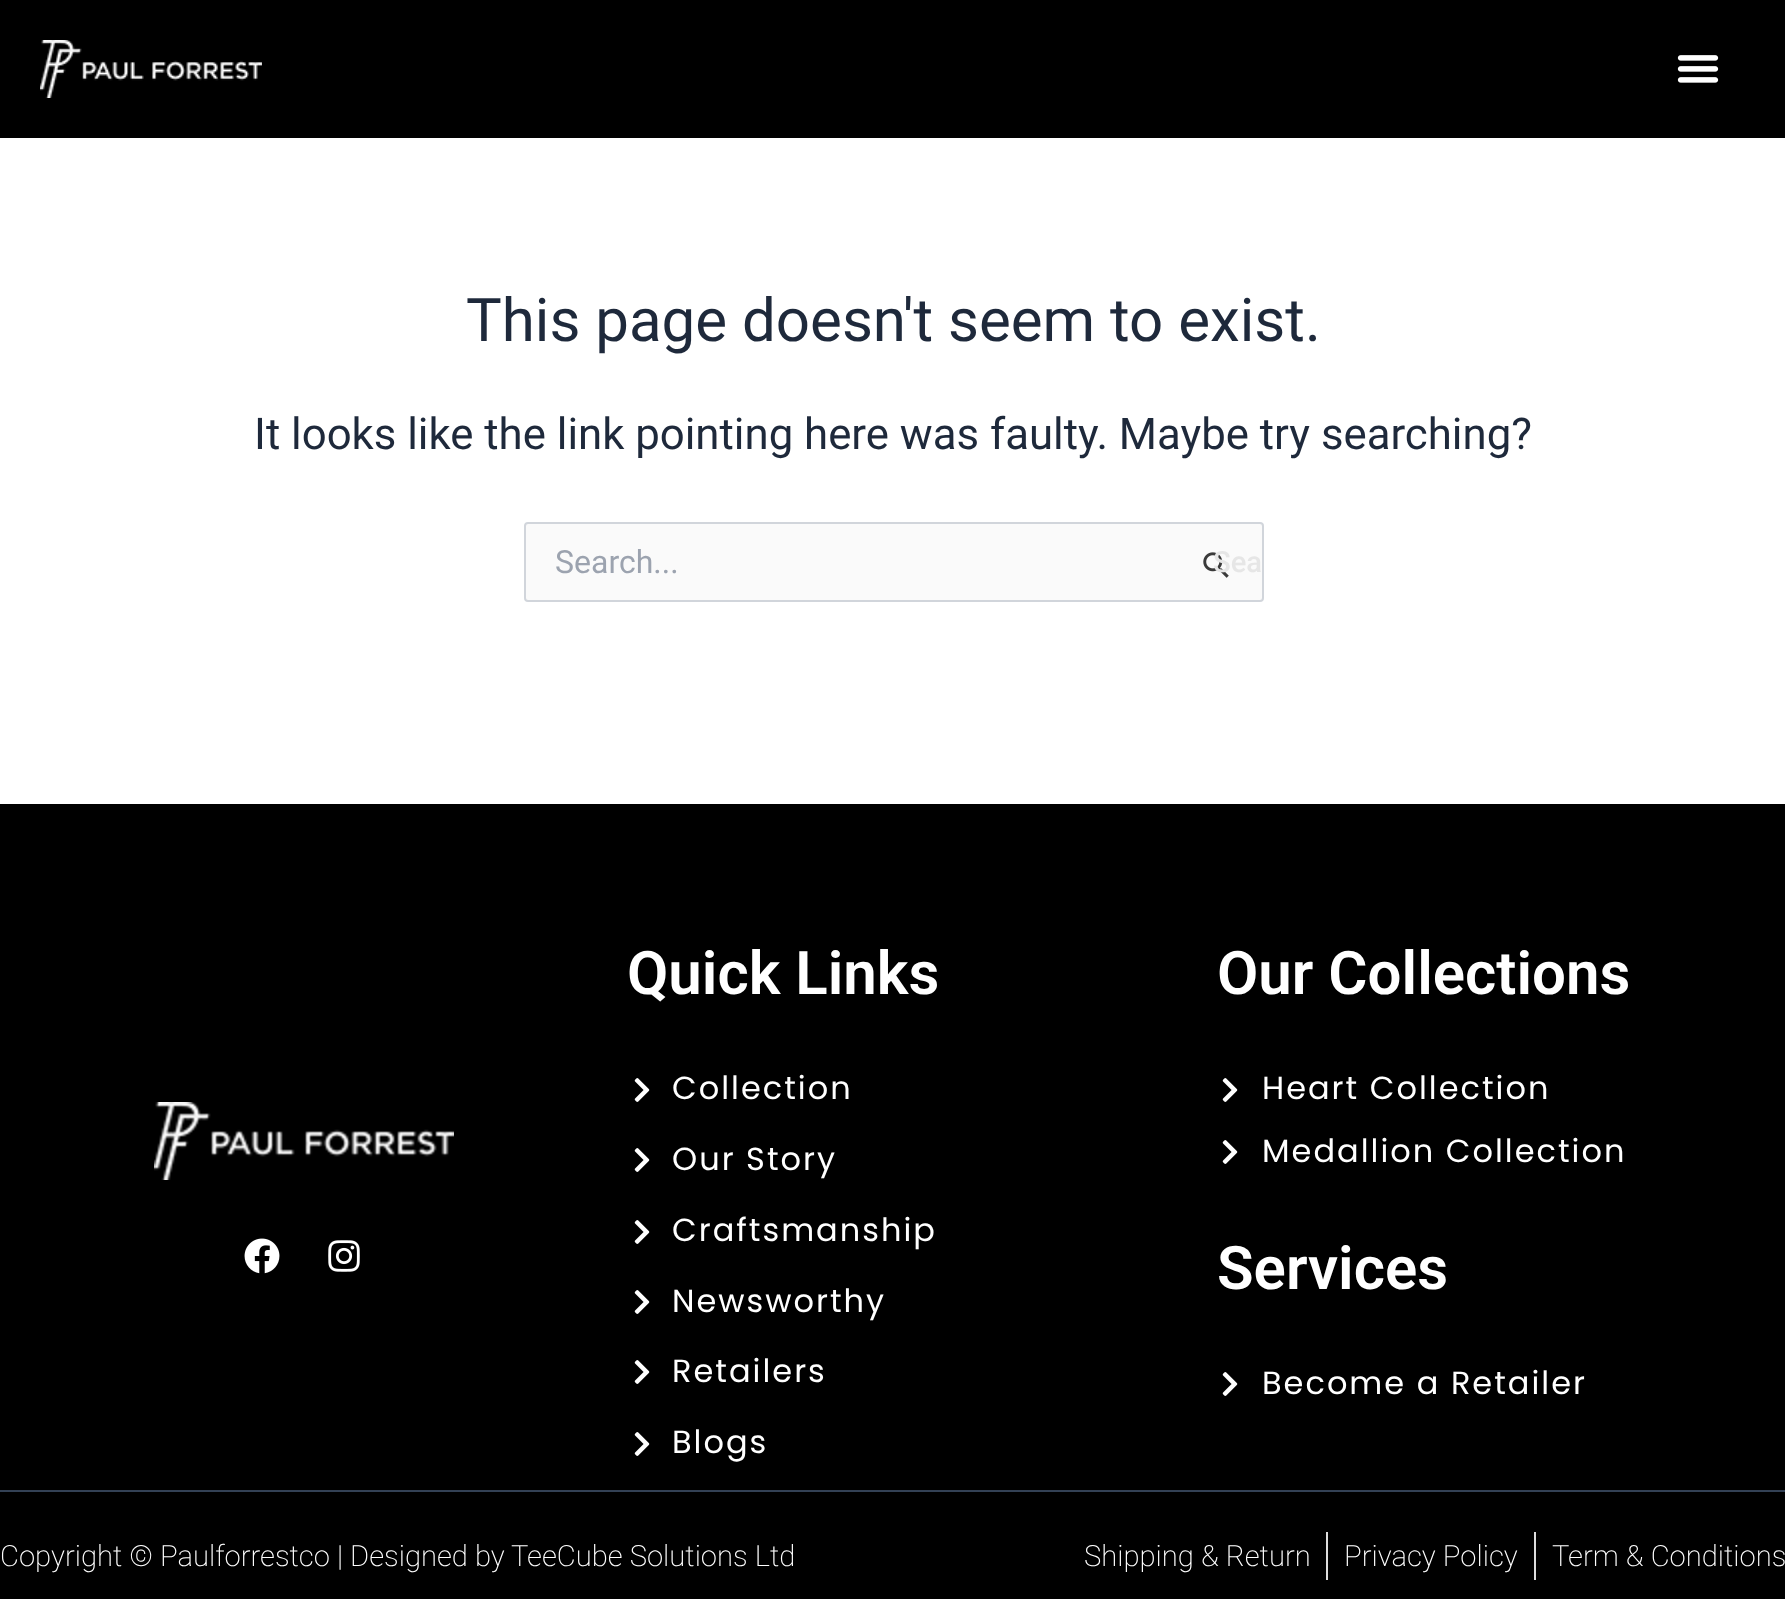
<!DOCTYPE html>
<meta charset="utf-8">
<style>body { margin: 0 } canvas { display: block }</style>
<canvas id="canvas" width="1785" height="1599"></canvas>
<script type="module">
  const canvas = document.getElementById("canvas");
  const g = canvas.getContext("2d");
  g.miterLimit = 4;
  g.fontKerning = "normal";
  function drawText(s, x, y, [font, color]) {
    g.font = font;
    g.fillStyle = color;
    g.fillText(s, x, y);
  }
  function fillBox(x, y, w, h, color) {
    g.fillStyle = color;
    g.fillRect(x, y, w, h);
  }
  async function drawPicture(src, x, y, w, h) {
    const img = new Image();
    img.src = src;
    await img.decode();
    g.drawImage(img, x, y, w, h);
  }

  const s1 = ["60px Roboto", "#1E293B"];
  const s2 = ["43.75px Roboto", "#1E293B"];
  const s3 = ["32px Roboto", "#9CA3AF"];
  const s4 = ["500 29.2px Roboto", "#E6E6E6"];
  const s5 = ["600 60px Roboto", "#FFFFFF"];
  const s6 = ["32px Poppins", "#FFFFFF"];
  const s7 = ["200 29.2px Roboto", "#FFFFFF"];

  fillBox(0, 0, 1785, 1599, "#FFFFFF");
  fillBox(0, 0, 1785, 138, "#000000");
  await drawPicture("pic1.png", 40, 40, 222, 58);
  await drawPicture("pic2.png", 1677, 55, 42, 28);
  drawText("This page doesn't seem to exist.", 466, 341, s1);
  drawText("It looks like the link pointing here was faulty. Maybe try searching?", 254, 449, s2);
  g.fillStyle = "#FAFAFA";
  g.beginPath();
  g.roundRect(525, 523, 738, 78, 3);
  g.fill();
  g.strokeStyle = "#D1D5DB";
  g.lineWidth = 2;
  g.stroke();
  drawText("Search...", 555, 573, s3);
  await drawPicture("pic3.png", 1203, 552, 26, 26);
  drawText("Sea", 1213, 572, s4);
  fillBox(0, 804, 1785, 795, "#000000");
  await drawPicture("pic4.png", 154, 1102, 300, 78);
  await drawPicture("pic5.png", 244, 1238, 36, 36);
  await drawPicture("pic6.png", 328, 1240, 32, 32);
  drawText("Quick Links", 627, 994, s5);
  await drawPicture("pic7.png", 634, 1078, 16, 24);
  g.letterSpacing = "2px";
  drawText("Collection", 672, 1099, s6);
  await drawPicture("pic7.png", 634, 1148, 16, 24);
  drawText("Our Story", 672, 1170, s6);
  await drawPicture("pic7.png", 634, 1220, 16, 24);
  drawText("Craftsmanship", 672, 1241, s6);
  await drawPicture("pic7.png", 634, 1290, 16, 24);
  drawText("Newsworthy", 672, 1312, s6);
  await drawPicture("pic7.png", 634, 1360, 16, 24);
  drawText("Retailers", 672, 1382, s6);
  await drawPicture("pic7.png", 634, 1432, 16, 24);
  drawText("Blogs", 672, 1453, s6);
  g.letterSpacing = "0px";
  drawText("Our Collections", 1217, 994, s5);
  await drawPicture("pic7.png", 1222, 1078, 16, 24);
  g.letterSpacing = "2px";
  drawText("Heart Collection", 1262, 1099, s6);
  await drawPicture("pic7.png", 1222, 1140, 16, 24);
  drawText("Medallion Collection", 1262, 1162, s6);
  g.letterSpacing = "0px";
  drawText("Services", 1217, 1289, s5);
  await drawPicture("pic7.png", 1222, 1372, 16, 24);
  g.letterSpacing = "2px";
  drawText("Become a Retailer", 1262, 1394, s6);
  fillBox(0, 1490, 1785, 2, "#334155");
  g.letterSpacing = "0px";
  drawText("Copyright © Paulforrestco | Designed by", 0, 1566, s7);
  drawText("TeeCube Solutions Ltd", 511, 1566, s7);
  drawText("Shipping & Return", 1084, 1566, s7);
  fillBox(1326, 1532, 2, 48, "#DDDDDD");
  drawText("Privacy Policy", 1344, 1566, s7);
  fillBox(1534, 1532, 2, 48, "#DDDDDD");
  drawText("Term & Conditions", 1552, 1566, s7);
</script>
